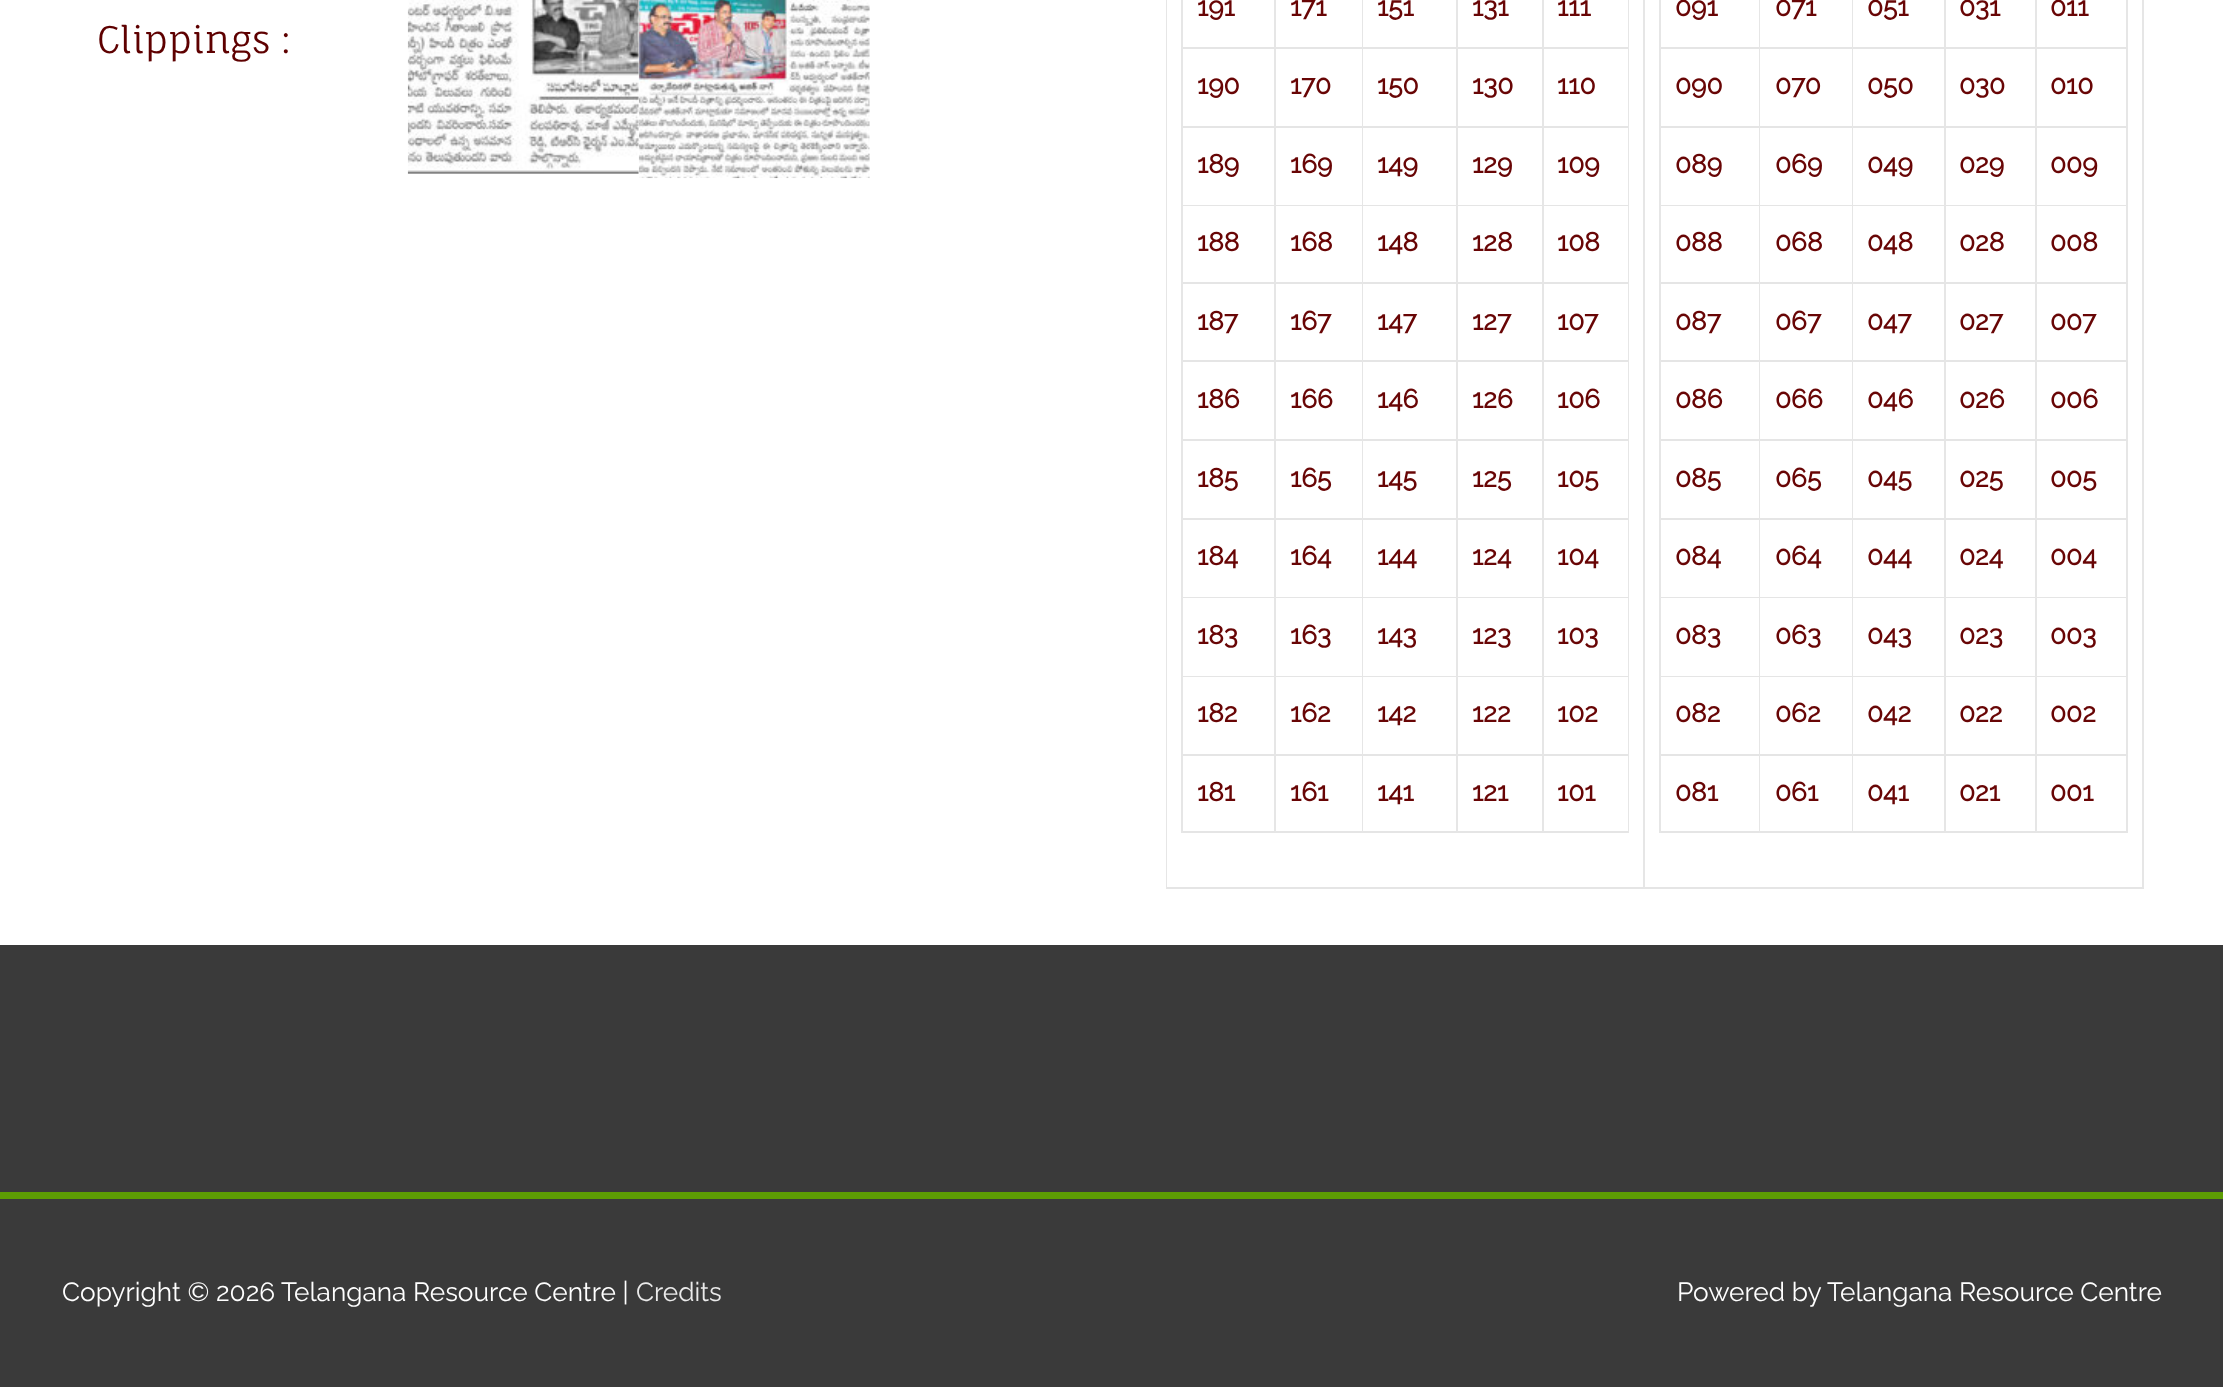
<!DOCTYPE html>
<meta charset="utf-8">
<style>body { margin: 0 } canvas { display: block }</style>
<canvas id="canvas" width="2223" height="1387"></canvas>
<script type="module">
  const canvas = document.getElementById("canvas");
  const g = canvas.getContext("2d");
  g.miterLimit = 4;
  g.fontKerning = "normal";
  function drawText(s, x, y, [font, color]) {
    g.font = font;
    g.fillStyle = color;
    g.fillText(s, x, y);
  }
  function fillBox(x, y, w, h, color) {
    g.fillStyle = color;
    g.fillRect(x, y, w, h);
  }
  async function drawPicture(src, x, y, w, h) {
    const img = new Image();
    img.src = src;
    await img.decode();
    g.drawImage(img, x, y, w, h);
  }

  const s1 = ["36.75px Fauna One", "#5E0000"];
  const s2 = ["bold 26.25px Raleway", "#680505"];
  const s3 = ["100 26.25px Raleway", "#FFFFFF"];
  const s4 = ["100 26.25px Raleway", "#EAEAEA"];

  fillBox(0, 0, 2223, 1387, "#FFFFFF");
  drawText("Clippings :", 97, 53, s1);
  await drawPicture("pic1.png", 407, 0, 232, 174);
  await drawPicture("pic2.png", 638, 0, 232, 179);
  g.fillStyle = "#E6E6E6";
  g.beginPath();
  g.moveTo(1166, 889);
  g.lineTo(1166, -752);
  g.lineTo(1167, -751);
  g.lineTo(1167, 889);
  g.closePath();
  g.fill();
  g.beginPath();
  g.moveTo(1645, -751);
  g.lineTo(1645, 889);
  g.lineTo(1643, 887);
  g.lineTo(1643, -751);
  g.closePath();
  g.fill();
  g.fillStyle = "rgba(0, 0, 0, 0.1)";
  g.beginPath();
  g.moveTo(1645, 889);
  g.lineTo(1167, 889);
  g.lineTo(1167, 887);
  g.lineTo(1643, 887);
  g.closePath();
  g.fill();
  g.fillStyle = "#E6E6E6";
  g.beginPath();
  g.moveTo(1181, 833);
  g.lineTo(1181, -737);
  g.lineTo(1183, -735);
  g.lineTo(1183, 833);
  g.closePath();
  g.fill();
  g.beginPath();
  g.moveTo(1276, -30);
  g.lineTo(1276, 49);
  g.lineTo(1274, 47);
  g.lineTo(1274, -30);
  g.closePath();
  g.fill();
  g.fillStyle = "rgba(0, 0, 0, 0.1)";
  g.beginPath();
  g.moveTo(1276, 49);
  g.lineTo(1183, 49);
  g.lineTo(1183, 47);
  g.lineTo(1274, 47);
  g.closePath();
  g.fill();
  drawText("191", 1197, 16, s2);
  g.fillStyle = "#E6E6E6";
  g.beginPath();
  g.moveTo(1363, -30);
  g.lineTo(1363, 49);
  g.lineTo(1362, 47);
  g.lineTo(1362, -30);
  g.closePath();
  g.fill();
  g.fillStyle = "rgba(0, 0, 0, 0.1)";
  g.beginPath();
  g.moveTo(1363, 49);
  g.lineTo(1276, 49);
  g.lineTo(1276, 47);
  g.lineTo(1362, 47);
  g.closePath();
  g.fill();
  drawText("171", 1290, 16, s2);
  g.fillStyle = "#E6E6E6";
  g.beginPath();
  g.moveTo(1458, -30);
  g.lineTo(1458, 49);
  g.lineTo(1456, 47);
  g.lineTo(1456, -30);
  g.closePath();
  g.fill();
  g.fillStyle = "rgba(0, 0, 0, 0.1)";
  g.beginPath();
  g.moveTo(1458, 49);
  g.lineTo(1363, 49);
  g.lineTo(1363, 47);
  g.lineTo(1456, 47);
  g.closePath();
  g.fill();
  drawText("151", 1377, 16, s2);
  g.fillStyle = "#E6E6E6";
  g.beginPath();
  g.moveTo(1544, -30);
  g.lineTo(1544, 49);
  g.lineTo(1542, 47);
  g.lineTo(1542, -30);
  g.closePath();
  g.fill();
  g.fillStyle = "rgba(0, 0, 0, 0.1)";
  g.beginPath();
  g.moveTo(1544, 49);
  g.lineTo(1458, 49);
  g.lineTo(1458, 47);
  g.lineTo(1542, 47);
  g.closePath();
  g.fill();
  drawText("131", 1472, 16, s2);
  g.fillStyle = "#E6E6E6";
  g.beginPath();
  g.moveTo(1629, -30);
  g.lineTo(1629, 49);
  g.lineTo(1628, 47);
  g.lineTo(1628, -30);
  g.closePath();
  g.fill();
  g.fillStyle = "rgba(0, 0, 0, 0.1)";
  g.beginPath();
  g.moveTo(1629, 49);
  g.lineTo(1544, 49);
  g.lineTo(1544, 47);
  g.lineTo(1628, 47);
  g.closePath();
  g.fill();
  drawText("111", 1557, 16, s2);
  g.fillStyle = "#E6E6E6";
  g.beginPath();
  g.moveTo(1276, 49);
  g.lineTo(1276, 128);
  g.lineTo(1274, 126);
  g.lineTo(1274, 49);
  g.closePath();
  g.fill();
  g.fillStyle = "rgba(0, 0, 0, 0.1)";
  g.beginPath();
  g.moveTo(1276, 128);
  g.lineTo(1183, 128);
  g.lineTo(1183, 126);
  g.lineTo(1274, 126);
  g.closePath();
  g.fill();
  drawText("190", 1197, 94, s2);
  g.fillStyle = "#E6E6E6";
  g.beginPath();
  g.moveTo(1363, 49);
  g.lineTo(1363, 128);
  g.lineTo(1362, 126);
  g.lineTo(1362, 49);
  g.closePath();
  g.fill();
  g.fillStyle = "rgba(0, 0, 0, 0.1)";
  g.beginPath();
  g.moveTo(1363, 128);
  g.lineTo(1276, 128);
  g.lineTo(1276, 126);
  g.lineTo(1362, 126);
  g.closePath();
  g.fill();
  drawText("170", 1290, 94, s2);
  g.fillStyle = "#E6E6E6";
  g.beginPath();
  g.moveTo(1458, 49);
  g.lineTo(1458, 128);
  g.lineTo(1456, 126);
  g.lineTo(1456, 49);
  g.closePath();
  g.fill();
  g.fillStyle = "rgba(0, 0, 0, 0.1)";
  g.beginPath();
  g.moveTo(1458, 128);
  g.lineTo(1363, 128);
  g.lineTo(1363, 126);
  g.lineTo(1456, 126);
  g.closePath();
  g.fill();
  drawText("150", 1377, 94, s2);
  g.fillStyle = "#E6E6E6";
  g.beginPath();
  g.moveTo(1544, 49);
  g.lineTo(1544, 128);
  g.lineTo(1542, 126);
  g.lineTo(1542, 49);
  g.closePath();
  g.fill();
  g.fillStyle = "rgba(0, 0, 0, 0.1)";
  g.beginPath();
  g.moveTo(1544, 128);
  g.lineTo(1458, 128);
  g.lineTo(1458, 126);
  g.lineTo(1542, 126);
  g.closePath();
  g.fill();
  drawText("130", 1472, 94, s2);
  g.fillStyle = "#E6E6E6";
  g.beginPath();
  g.moveTo(1629, 49);
  g.lineTo(1629, 128);
  g.lineTo(1628, 126);
  g.lineTo(1628, 49);
  g.closePath();
  g.fill();
  g.fillStyle = "rgba(0, 0, 0, 0.1)";
  g.beginPath();
  g.moveTo(1629, 128);
  g.lineTo(1544, 128);
  g.lineTo(1544, 126);
  g.lineTo(1628, 126);
  g.closePath();
  g.fill();
  drawText("110", 1557, 94, s2);
  g.fillStyle = "#E6E6E6";
  g.beginPath();
  g.moveTo(1276, 128);
  g.lineTo(1276, 206);
  g.lineTo(1274, 205);
  g.lineTo(1274, 128);
  g.closePath();
  g.fill();
  g.fillStyle = "rgba(0, 0, 0, 0.1)";
  g.beginPath();
  g.moveTo(1276, 206);
  g.lineTo(1183, 206);
  g.lineTo(1183, 205);
  g.lineTo(1274, 205);
  g.closePath();
  g.fill();
  drawText("189", 1197, 173, s2);
  g.fillStyle = "#E6E6E6";
  g.beginPath();
  g.moveTo(1363, 128);
  g.lineTo(1363, 206);
  g.lineTo(1362, 205);
  g.lineTo(1362, 128);
  g.closePath();
  g.fill();
  g.fillStyle = "rgba(0, 0, 0, 0.1)";
  g.beginPath();
  g.moveTo(1363, 206);
  g.lineTo(1276, 206);
  g.lineTo(1276, 205);
  g.lineTo(1362, 205);
  g.closePath();
  g.fill();
  drawText("169", 1290, 173, s2);
  g.fillStyle = "#E6E6E6";
  g.beginPath();
  g.moveTo(1458, 128);
  g.lineTo(1458, 206);
  g.lineTo(1456, 205);
  g.lineTo(1456, 128);
  g.closePath();
  g.fill();
  g.fillStyle = "rgba(0, 0, 0, 0.1)";
  g.beginPath();
  g.moveTo(1458, 206);
  g.lineTo(1363, 206);
  g.lineTo(1363, 205);
  g.lineTo(1456, 205);
  g.closePath();
  g.fill();
  drawText("149", 1377, 173, s2);
  g.fillStyle = "#E6E6E6";
  g.beginPath();
  g.moveTo(1544, 128);
  g.lineTo(1544, 206);
  g.lineTo(1542, 205);
  g.lineTo(1542, 128);
  g.closePath();
  g.fill();
  g.fillStyle = "rgba(0, 0, 0, 0.1)";
  g.beginPath();
  g.moveTo(1544, 206);
  g.lineTo(1458, 206);
  g.lineTo(1458, 205);
  g.lineTo(1542, 205);
  g.closePath();
  g.fill();
  drawText("129", 1472, 173, s2);
  g.fillStyle = "#E6E6E6";
  g.beginPath();
  g.moveTo(1629, 128);
  g.lineTo(1629, 206);
  g.lineTo(1628, 205);
  g.lineTo(1628, 128);
  g.closePath();
  g.fill();
  g.fillStyle = "rgba(0, 0, 0, 0.1)";
  g.beginPath();
  g.moveTo(1629, 206);
  g.lineTo(1544, 206);
  g.lineTo(1544, 205);
  g.lineTo(1628, 205);
  g.closePath();
  g.fill();
  drawText("109", 1557, 173, s2);
  g.fillStyle = "#E6E6E6";
  g.beginPath();
  g.moveTo(1276, 206);
  g.lineTo(1276, 284);
  g.lineTo(1274, 282);
  g.lineTo(1274, 206);
  g.closePath();
  g.fill();
  g.fillStyle = "rgba(0, 0, 0, 0.1)";
  g.beginPath();
  g.moveTo(1276, 284);
  g.lineTo(1183, 284);
  g.lineTo(1183, 282);
  g.lineTo(1274, 282);
  g.closePath();
  g.fill();
  drawText("188", 1197, 251, s2);
  g.fillStyle = "#E6E6E6";
  g.beginPath();
  g.moveTo(1363, 206);
  g.lineTo(1363, 284);
  g.lineTo(1362, 282);
  g.lineTo(1362, 206);
  g.closePath();
  g.fill();
  g.fillStyle = "rgba(0, 0, 0, 0.1)";
  g.beginPath();
  g.moveTo(1363, 284);
  g.lineTo(1276, 284);
  g.lineTo(1276, 282);
  g.lineTo(1362, 282);
  g.closePath();
  g.fill();
  drawText("168", 1290, 251, s2);
  g.fillStyle = "#E6E6E6";
  g.beginPath();
  g.moveTo(1458, 206);
  g.lineTo(1458, 284);
  g.lineTo(1456, 282);
  g.lineTo(1456, 206);
  g.closePath();
  g.fill();
  g.fillStyle = "rgba(0, 0, 0, 0.1)";
  g.beginPath();
  g.moveTo(1458, 284);
  g.lineTo(1363, 284);
  g.lineTo(1363, 282);
  g.lineTo(1456, 282);
  g.closePath();
  g.fill();
  drawText("148", 1377, 251, s2);
  g.fillStyle = "#E6E6E6";
  g.beginPath();
  g.moveTo(1544, 206);
  g.lineTo(1544, 284);
  g.lineTo(1542, 282);
  g.lineTo(1542, 206);
  g.closePath();
  g.fill();
  g.fillStyle = "rgba(0, 0, 0, 0.1)";
  g.beginPath();
  g.moveTo(1544, 284);
  g.lineTo(1458, 284);
  g.lineTo(1458, 282);
  g.lineTo(1542, 282);
  g.closePath();
  g.fill();
  drawText("128", 1472, 251, s2);
  g.fillStyle = "#E6E6E6";
  g.beginPath();
  g.moveTo(1629, 206);
  g.lineTo(1629, 284);
  g.lineTo(1628, 282);
  g.lineTo(1628, 206);
  g.closePath();
  g.fill();
  g.fillStyle = "rgba(0, 0, 0, 0.1)";
  g.beginPath();
  g.moveTo(1629, 284);
  g.lineTo(1544, 284);
  g.lineTo(1544, 282);
  g.lineTo(1628, 282);
  g.closePath();
  g.fill();
  drawText("108", 1557, 251, s2);
  g.fillStyle = "#E6E6E6";
  g.beginPath();
  g.moveTo(1276, 284);
  g.lineTo(1276, 362);
  g.lineTo(1274, 360);
  g.lineTo(1274, 284);
  g.closePath();
  g.fill();
  g.fillStyle = "rgba(0, 0, 0, 0.1)";
  g.beginPath();
  g.moveTo(1276, 362);
  g.lineTo(1183, 362);
  g.lineTo(1183, 360);
  g.lineTo(1274, 360);
  g.closePath();
  g.fill();
  drawText("187", 1197, 330, s2);
  g.fillStyle = "#E6E6E6";
  g.beginPath();
  g.moveTo(1363, 284);
  g.lineTo(1363, 362);
  g.lineTo(1362, 360);
  g.lineTo(1362, 284);
  g.closePath();
  g.fill();
  g.fillStyle = "rgba(0, 0, 0, 0.1)";
  g.beginPath();
  g.moveTo(1363, 362);
  g.lineTo(1276, 362);
  g.lineTo(1276, 360);
  g.lineTo(1362, 360);
  g.closePath();
  g.fill();
  drawText("167", 1290, 330, s2);
  g.fillStyle = "#E6E6E6";
  g.beginPath();
  g.moveTo(1458, 284);
  g.lineTo(1458, 362);
  g.lineTo(1456, 360);
  g.lineTo(1456, 284);
  g.closePath();
  g.fill();
  g.fillStyle = "rgba(0, 0, 0, 0.1)";
  g.beginPath();
  g.moveTo(1458, 362);
  g.lineTo(1363, 362);
  g.lineTo(1363, 360);
  g.lineTo(1456, 360);
  g.closePath();
  g.fill();
  drawText("147", 1377, 330, s2);
  g.fillStyle = "#E6E6E6";
  g.beginPath();
  g.moveTo(1544, 284);
  g.lineTo(1544, 362);
  g.lineTo(1542, 360);
  g.lineTo(1542, 284);
  g.closePath();
  g.fill();
  g.fillStyle = "rgba(0, 0, 0, 0.1)";
  g.beginPath();
  g.moveTo(1544, 362);
  g.lineTo(1458, 362);
  g.lineTo(1458, 360);
  g.lineTo(1542, 360);
  g.closePath();
  g.fill();
  drawText("127", 1472, 330, s2);
  g.fillStyle = "#E6E6E6";
  g.beginPath();
  g.moveTo(1629, 284);
  g.lineTo(1629, 362);
  g.lineTo(1628, 360);
  g.lineTo(1628, 284);
  g.closePath();
  g.fill();
  g.fillStyle = "rgba(0, 0, 0, 0.1)";
  g.beginPath();
  g.moveTo(1629, 362);
  g.lineTo(1544, 362);
  g.lineTo(1544, 360);
  g.lineTo(1628, 360);
  g.closePath();
  g.fill();
  drawText("107", 1557, 330, s2);
  g.fillStyle = "#E6E6E6";
  g.beginPath();
  g.moveTo(1276, 362);
  g.lineTo(1276, 441);
  g.lineTo(1274, 439);
  g.lineTo(1274, 362);
  g.closePath();
  g.fill();
  g.fillStyle = "rgba(0, 0, 0, 0.1)";
  g.beginPath();
  g.moveTo(1276, 441);
  g.lineTo(1183, 441);
  g.lineTo(1183, 439);
  g.lineTo(1274, 439);
  g.closePath();
  g.fill();
  drawText("186", 1197, 408, s2);
  g.fillStyle = "#E6E6E6";
  g.beginPath();
  g.moveTo(1363, 362);
  g.lineTo(1363, 441);
  g.lineTo(1362, 439);
  g.lineTo(1362, 362);
  g.closePath();
  g.fill();
  g.fillStyle = "rgba(0, 0, 0, 0.1)";
  g.beginPath();
  g.moveTo(1363, 441);
  g.lineTo(1276, 441);
  g.lineTo(1276, 439);
  g.lineTo(1362, 439);
  g.closePath();
  g.fill();
  drawText("166", 1290, 408, s2);
  g.fillStyle = "#E6E6E6";
  g.beginPath();
  g.moveTo(1458, 362);
  g.lineTo(1458, 441);
  g.lineTo(1456, 439);
  g.lineTo(1456, 362);
  g.closePath();
  g.fill();
  g.fillStyle = "rgba(0, 0, 0, 0.1)";
  g.beginPath();
  g.moveTo(1458, 441);
  g.lineTo(1363, 441);
  g.lineTo(1363, 439);
  g.lineTo(1456, 439);
  g.closePath();
  g.fill();
  drawText("146", 1377, 408, s2);
  g.fillStyle = "#E6E6E6";
  g.beginPath();
  g.moveTo(1544, 362);
  g.lineTo(1544, 441);
  g.lineTo(1542, 439);
  g.lineTo(1542, 362);
  g.closePath();
  g.fill();
  g.fillStyle = "rgba(0, 0, 0, 0.1)";
  g.beginPath();
  g.moveTo(1544, 441);
  g.lineTo(1458, 441);
  g.lineTo(1458, 439);
  g.lineTo(1542, 439);
  g.closePath();
  g.fill();
  drawText("126", 1472, 408, s2);
  g.fillStyle = "#E6E6E6";
  g.beginPath();
  g.moveTo(1629, 362);
  g.lineTo(1629, 441);
  g.lineTo(1628, 439);
  g.lineTo(1628, 362);
  g.closePath();
  g.fill();
  g.fillStyle = "rgba(0, 0, 0, 0.1)";
  g.beginPath();
  g.moveTo(1629, 441);
  g.lineTo(1544, 441);
  g.lineTo(1544, 439);
  g.lineTo(1628, 439);
  g.closePath();
  g.fill();
  drawText("106", 1557, 408, s2);
  g.fillStyle = "#E6E6E6";
  g.beginPath();
  g.moveTo(1276, 441);
  g.lineTo(1276, 520);
  g.lineTo(1274, 518);
  g.lineTo(1274, 441);
  g.closePath();
  g.fill();
  g.fillStyle = "rgba(0, 0, 0, 0.1)";
  g.beginPath();
  g.moveTo(1276, 520);
  g.lineTo(1183, 520);
  g.lineTo(1183, 518);
  g.lineTo(1274, 518);
  g.closePath();
  g.fill();
  drawText("185", 1197, 487, s2);
  g.fillStyle = "#E6E6E6";
  g.beginPath();
  g.moveTo(1363, 441);
  g.lineTo(1363, 520);
  g.lineTo(1362, 518);
  g.lineTo(1362, 441);
  g.closePath();
  g.fill();
  g.fillStyle = "rgba(0, 0, 0, 0.1)";
  g.beginPath();
  g.moveTo(1363, 520);
  g.lineTo(1276, 520);
  g.lineTo(1276, 518);
  g.lineTo(1362, 518);
  g.closePath();
  g.fill();
  drawText("165", 1290, 487, s2);
  g.fillStyle = "#E6E6E6";
  g.beginPath();
  g.moveTo(1458, 441);
  g.lineTo(1458, 520);
  g.lineTo(1456, 518);
  g.lineTo(1456, 441);
  g.closePath();
  g.fill();
  g.fillStyle = "rgba(0, 0, 0, 0.1)";
  g.beginPath();
  g.moveTo(1458, 520);
  g.lineTo(1363, 520);
  g.lineTo(1363, 518);
  g.lineTo(1456, 518);
  g.closePath();
  g.fill();
  drawText("145", 1377, 487, s2);
  g.fillStyle = "#E6E6E6";
  g.beginPath();
  g.moveTo(1544, 441);
  g.lineTo(1544, 520);
  g.lineTo(1542, 518);
  g.lineTo(1542, 441);
  g.closePath();
  g.fill();
  g.fillStyle = "rgba(0, 0, 0, 0.1)";
  g.beginPath();
  g.moveTo(1544, 520);
  g.lineTo(1458, 520);
  g.lineTo(1458, 518);
  g.lineTo(1542, 518);
  g.closePath();
  g.fill();
  drawText("125", 1472, 487, s2);
  g.fillStyle = "#E6E6E6";
  g.beginPath();
  g.moveTo(1629, 441);
  g.lineTo(1629, 520);
  g.lineTo(1628, 518);
  g.lineTo(1628, 441);
  g.closePath();
  g.fill();
  g.fillStyle = "rgba(0, 0, 0, 0.1)";
  g.beginPath();
  g.moveTo(1629, 520);
  g.lineTo(1544, 520);
  g.lineTo(1544, 518);
  g.lineTo(1628, 518);
  g.closePath();
  g.fill();
  drawText("105", 1557, 487, s2);
  g.fillStyle = "#E6E6E6";
  g.beginPath();
  g.moveTo(1276, 520);
  g.lineTo(1276, 598);
  g.lineTo(1274, 597);
  g.lineTo(1274, 520);
  g.closePath();
  g.fill();
  g.fillStyle = "rgba(0, 0, 0, 0.1)";
  g.beginPath();
  g.moveTo(1276, 598);
  g.lineTo(1183, 598);
  g.lineTo(1183, 597);
  g.lineTo(1274, 597);
  g.closePath();
  g.fill();
  drawText("184", 1197, 565, s2);
  g.fillStyle = "#E6E6E6";
  g.beginPath();
  g.moveTo(1363, 520);
  g.lineTo(1363, 598);
  g.lineTo(1362, 597);
  g.lineTo(1362, 520);
  g.closePath();
  g.fill();
  g.fillStyle = "rgba(0, 0, 0, 0.1)";
  g.beginPath();
  g.moveTo(1363, 598);
  g.lineTo(1276, 598);
  g.lineTo(1276, 597);
  g.lineTo(1362, 597);
  g.closePath();
  g.fill();
  drawText("164", 1290, 565, s2);
  g.fillStyle = "#E6E6E6";
  g.beginPath();
  g.moveTo(1458, 520);
  g.lineTo(1458, 598);
  g.lineTo(1456, 597);
  g.lineTo(1456, 520);
  g.closePath();
  g.fill();
  g.fillStyle = "rgba(0, 0, 0, 0.1)";
  g.beginPath();
  g.moveTo(1458, 598);
  g.lineTo(1363, 598);
  g.lineTo(1363, 597);
  g.lineTo(1456, 597);
  g.closePath();
  g.fill();
  drawText("144", 1377, 565, s2);
  g.fillStyle = "#E6E6E6";
  g.beginPath();
  g.moveTo(1544, 520);
  g.lineTo(1544, 598);
  g.lineTo(1542, 597);
  g.lineTo(1542, 520);
  g.closePath();
  g.fill();
  g.fillStyle = "rgba(0, 0, 0, 0.1)";
  g.beginPath();
  g.moveTo(1544, 598);
  g.lineTo(1458, 598);
  g.lineTo(1458, 597);
  g.lineTo(1542, 597);
  g.closePath();
  g.fill();
  drawText("124", 1472, 565, s2);
  g.fillStyle = "#E6E6E6";
  g.beginPath();
  g.moveTo(1629, 520);
  g.lineTo(1629, 598);
  g.lineTo(1628, 597);
  g.lineTo(1628, 520);
  g.closePath();
  g.fill();
  g.fillStyle = "rgba(0, 0, 0, 0.1)";
  g.beginPath();
  g.moveTo(1629, 598);
  g.lineTo(1544, 598);
  g.lineTo(1544, 597);
  g.lineTo(1628, 597);
  g.closePath();
  g.fill();
  drawText("104", 1557, 565, s2);
  g.fillStyle = "#E6E6E6";
  g.beginPath();
  g.moveTo(1276, 598);
  g.lineTo(1276, 677);
  g.lineTo(1274, 676);
  g.lineTo(1274, 598);
  g.closePath();
  g.fill();
  g.fillStyle = "rgba(0, 0, 0, 0.1)";
  g.beginPath();
  g.moveTo(1276, 677);
  g.lineTo(1183, 677);
  g.lineTo(1183, 676);
  g.lineTo(1274, 676);
  g.closePath();
  g.fill();
  drawText("183", 1197, 644, s2);
  g.fillStyle = "#E6E6E6";
  g.beginPath();
  g.moveTo(1363, 598);
  g.lineTo(1363, 677);
  g.lineTo(1362, 676);
  g.lineTo(1362, 598);
  g.closePath();
  g.fill();
  g.fillStyle = "rgba(0, 0, 0, 0.1)";
  g.beginPath();
  g.moveTo(1363, 677);
  g.lineTo(1276, 677);
  g.lineTo(1276, 676);
  g.lineTo(1362, 676);
  g.closePath();
  g.fill();
  drawText("163", 1290, 644, s2);
  g.fillStyle = "#E6E6E6";
  g.beginPath();
  g.moveTo(1458, 598);
  g.lineTo(1458, 677);
  g.lineTo(1456, 676);
  g.lineTo(1456, 598);
  g.closePath();
  g.fill();
  g.fillStyle = "rgba(0, 0, 0, 0.1)";
  g.beginPath();
  g.moveTo(1458, 677);
  g.lineTo(1363, 677);
  g.lineTo(1363, 676);
  g.lineTo(1456, 676);
  g.closePath();
  g.fill();
  drawText("143", 1377, 644, s2);
  g.fillStyle = "#E6E6E6";
  g.beginPath();
  g.moveTo(1544, 598);
  g.lineTo(1544, 677);
  g.lineTo(1542, 676);
  g.lineTo(1542, 598);
  g.closePath();
  g.fill();
  g.fillStyle = "rgba(0, 0, 0, 0.1)";
  g.beginPath();
  g.moveTo(1544, 677);
  g.lineTo(1458, 677);
  g.lineTo(1458, 676);
  g.lineTo(1542, 676);
  g.closePath();
  g.fill();
  drawText("123", 1472, 644, s2);
  g.fillStyle = "#E6E6E6";
  g.beginPath();
  g.moveTo(1629, 598);
  g.lineTo(1629, 677);
  g.lineTo(1628, 676);
  g.lineTo(1628, 598);
  g.closePath();
  g.fill();
  g.fillStyle = "rgba(0, 0, 0, 0.1)";
  g.beginPath();
  g.moveTo(1629, 677);
  g.lineTo(1544, 677);
  g.lineTo(1544, 676);
  g.lineTo(1628, 676);
  g.closePath();
  g.fill();
  drawText("103", 1557, 644, s2);
  g.fillStyle = "#E6E6E6";
  g.beginPath();
  g.moveTo(1276, 677);
  g.lineTo(1276, 756);
  g.lineTo(1274, 754);
  g.lineTo(1274, 677);
  g.closePath();
  g.fill();
  g.fillStyle = "rgba(0, 0, 0, 0.1)";
  g.beginPath();
  g.moveTo(1276, 756);
  g.lineTo(1183, 756);
  g.lineTo(1183, 754);
  g.lineTo(1274, 754);
  g.closePath();
  g.fill();
  drawText("182", 1197, 722, s2);
  g.fillStyle = "#E6E6E6";
  g.beginPath();
  g.moveTo(1363, 677);
  g.lineTo(1363, 756);
  g.lineTo(1362, 754);
  g.lineTo(1362, 677);
  g.closePath();
  g.fill();
  g.fillStyle = "rgba(0, 0, 0, 0.1)";
  g.beginPath();
  g.moveTo(1363, 756);
  g.lineTo(1276, 756);
  g.lineTo(1276, 754);
  g.lineTo(1362, 754);
  g.closePath();
  g.fill();
  drawText("162", 1290, 722, s2);
  g.fillStyle = "#E6E6E6";
  g.beginPath();
  g.moveTo(1458, 677);
  g.lineTo(1458, 756);
  g.lineTo(1456, 754);
  g.lineTo(1456, 677);
  g.closePath();
  g.fill();
  g.fillStyle = "rgba(0, 0, 0, 0.1)";
  g.beginPath();
  g.moveTo(1458, 756);
  g.lineTo(1363, 756);
  g.lineTo(1363, 754);
  g.lineTo(1456, 754);
  g.closePath();
  g.fill();
  drawText("142", 1377, 722, s2);
  g.fillStyle = "#E6E6E6";
  g.beginPath();
  g.moveTo(1544, 677);
  g.lineTo(1544, 756);
  g.lineTo(1542, 754);
  g.lineTo(1542, 677);
  g.closePath();
  g.fill();
  g.fillStyle = "rgba(0, 0, 0, 0.1)";
  g.beginPath();
  g.moveTo(1544, 756);
  g.lineTo(1458, 756);
  g.lineTo(1458, 754);
  g.lineTo(1542, 754);
  g.closePath();
  g.fill();
  drawText("122", 1472, 722, s2);
  g.fillStyle = "#E6E6E6";
  g.beginPath();
  g.moveTo(1629, 677);
  g.lineTo(1629, 756);
  g.lineTo(1628, 754);
  g.lineTo(1628, 677);
  g.closePath();
  g.fill();
  g.fillStyle = "rgba(0, 0, 0, 0.1)";
  g.beginPath();
  g.moveTo(1629, 756);
  g.lineTo(1544, 756);
  g.lineTo(1544, 754);
  g.lineTo(1628, 754);
  g.closePath();
  g.fill();
  drawText("102", 1557, 722, s2);
  g.fillStyle = "#E6E6E6";
  g.beginPath();
  g.moveTo(1276, 756);
  g.lineTo(1276, 833);
  g.lineTo(1274, 831);
  g.lineTo(1274, 756);
  g.closePath();
  g.fill();
  g.fillStyle = "rgba(0, 0, 0, 0.1)";
  g.beginPath();
  g.moveTo(1276, 833);
  g.lineTo(1183, 833);
  g.lineTo(1183, 831);
  g.lineTo(1274, 831);
  g.closePath();
  g.fill();
  drawText("181", 1197, 801, s2);
  g.fillStyle = "#E6E6E6";
  g.beginPath();
  g.moveTo(1363, 756);
  g.lineTo(1363, 833);
  g.lineTo(1362, 831);
  g.lineTo(1362, 756);
  g.closePath();
  g.fill();
  g.fillStyle = "rgba(0, 0, 0, 0.1)";
  g.beginPath();
  g.moveTo(1363, 833);
  g.lineTo(1276, 833);
  g.lineTo(1276, 831);
  g.lineTo(1362, 831);
  g.closePath();
  g.fill();
  drawText("161", 1290, 801, s2);
  g.fillStyle = "#E6E6E6";
  g.beginPath();
  g.moveTo(1458, 756);
  g.lineTo(1458, 833);
  g.lineTo(1456, 831);
  g.lineTo(1456, 756);
  g.closePath();
  g.fill();
  g.fillStyle = "rgba(0, 0, 0, 0.1)";
  g.beginPath();
  g.moveTo(1458, 833);
  g.lineTo(1363, 833);
  g.lineTo(1363, 831);
  g.lineTo(1456, 831);
  g.closePath();
  g.fill();
  drawText("141", 1377, 801, s2);
  g.fillStyle = "#E6E6E6";
  g.beginPath();
  g.moveTo(1544, 756);
  g.lineTo(1544, 833);
  g.lineTo(1542, 831);
  g.lineTo(1542, 756);
  g.closePath();
  g.fill();
  g.fillStyle = "rgba(0, 0, 0, 0.1)";
  g.beginPath();
  g.moveTo(1544, 833);
  g.lineTo(1458, 833);
  g.lineTo(1458, 831);
  g.lineTo(1542, 831);
  g.closePath();
  g.fill();
  drawText("121", 1472, 801, s2);
  g.fillStyle = "#E6E6E6";
  g.beginPath();
  g.moveTo(1629, 756);
  g.lineTo(1629, 833);
  g.lineTo(1628, 831);
  g.lineTo(1628, 756);
  g.closePath();
  g.fill();
  g.fillStyle = "rgba(0, 0, 0, 0.1)";
  g.beginPath();
  g.moveTo(1629, 833);
  g.lineTo(1544, 833);
  g.lineTo(1544, 831);
  g.lineTo(1628, 831);
  g.closePath();
  g.fill();
  drawText("101", 1557, 801, s2);
  g.fillStyle = "#E6E6E6";
  g.beginPath();
  g.moveTo(2144, -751);
  g.lineTo(2144, 889);
  g.lineTo(2142, 887);
  g.lineTo(2142, -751);
  g.closePath();
  g.fill();
  g.fillStyle = "rgba(0, 0, 0, 0.1)";
  g.beginPath();
  g.moveTo(2144, 889);
  g.lineTo(1645, 889);
  g.lineTo(1645, 887);
  g.lineTo(2142, 887);
  g.closePath();
  g.fill();
  g.fillStyle = "#E6E6E6";
  g.beginPath();
  g.moveTo(1659, 833);
  g.lineTo(1659, -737);
  g.lineTo(1661, -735);
  g.lineTo(1661, 833);
  g.closePath();
  g.fill();
  g.beginPath();
  g.moveTo(1760, -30);
  g.lineTo(1760, 49);
  g.lineTo(1759, 47);
  g.lineTo(1759, -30);
  g.closePath();
  g.fill();
  g.fillStyle = "rgba(0, 0, 0, 0.1)";
  g.beginPath();
  g.moveTo(1760, 49);
  g.lineTo(1661, 49);
  g.lineTo(1661, 47);
  g.lineTo(1759, 47);
  g.closePath();
  g.fill();
  drawText("091", 1675, 16, s2);
  g.fillStyle = "#E6E6E6";
  g.beginPath();
  g.moveTo(1853, -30);
  g.lineTo(1853, 49);
  g.lineTo(1852, 47);
  g.lineTo(1852, -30);
  g.closePath();
  g.fill();
  g.fillStyle = "rgba(0, 0, 0, 0.1)";
  g.beginPath();
  g.moveTo(1853, 49);
  g.lineTo(1760, 49);
  g.lineTo(1760, 47);
  g.lineTo(1852, 47);
  g.closePath();
  g.fill();
  drawText("071", 1775, 16, s2);
  g.fillStyle = "#E6E6E6";
  g.beginPath();
  g.moveTo(1946, -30);
  g.lineTo(1946, 49);
  g.lineTo(1944, 47);
  g.lineTo(1944, -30);
  g.closePath();
  g.fill();
  g.fillStyle = "rgba(0, 0, 0, 0.1)";
  g.beginPath();
  g.moveTo(1946, 49);
  g.lineTo(1853, 49);
  g.lineTo(1853, 47);
  g.lineTo(1944, 47);
  g.closePath();
  g.fill();
  drawText("051", 1867, 16, s2);
  g.fillStyle = "#E6E6E6";
  g.beginPath();
  g.moveTo(2037, -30);
  g.lineTo(2037, 49);
  g.lineTo(2035, 47);
  g.lineTo(2035, -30);
  g.closePath();
  g.fill();
  g.fillStyle = "rgba(0, 0, 0, 0.1)";
  g.beginPath();
  g.moveTo(2037, 49);
  g.lineTo(1946, 49);
  g.lineTo(1946, 47);
  g.lineTo(2035, 47);
  g.closePath();
  g.fill();
  drawText("031", 1959, 16, s2);
  g.fillStyle = "#E6E6E6";
  g.beginPath();
  g.moveTo(2128, -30);
  g.lineTo(2128, 49);
  g.lineTo(2126, 47);
  g.lineTo(2126, -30);
  g.closePath();
  g.fill();
  g.fillStyle = "rgba(0, 0, 0, 0.1)";
  g.beginPath();
  g.moveTo(2128, 49);
  g.lineTo(2037, 49);
  g.lineTo(2037, 47);
  g.lineTo(2126, 47);
  g.closePath();
  g.fill();
  drawText("011", 2050, 16, s2);
  g.fillStyle = "#E6E6E6";
  g.beginPath();
  g.moveTo(1760, 49);
  g.lineTo(1760, 128);
  g.lineTo(1759, 126);
  g.lineTo(1759, 49);
  g.closePath();
  g.fill();
  g.fillStyle = "rgba(0, 0, 0, 0.1)";
  g.beginPath();
  g.moveTo(1760, 128);
  g.lineTo(1661, 128);
  g.lineTo(1661, 126);
  g.lineTo(1759, 126);
  g.closePath();
  g.fill();
  drawText("090", 1675, 94, s2);
  g.fillStyle = "#E6E6E6";
  g.beginPath();
  g.moveTo(1853, 49);
  g.lineTo(1853, 128);
  g.lineTo(1852, 126);
  g.lineTo(1852, 49);
  g.closePath();
  g.fill();
  g.fillStyle = "rgba(0, 0, 0, 0.1)";
  g.beginPath();
  g.moveTo(1853, 128);
  g.lineTo(1760, 128);
  g.lineTo(1760, 126);
  g.lineTo(1852, 126);
  g.closePath();
  g.fill();
  drawText("070", 1775, 94, s2);
  g.fillStyle = "#E6E6E6";
  g.beginPath();
  g.moveTo(1946, 49);
  g.lineTo(1946, 128);
  g.lineTo(1944, 126);
  g.lineTo(1944, 49);
  g.closePath();
  g.fill();
  g.fillStyle = "rgba(0, 0, 0, 0.1)";
  g.beginPath();
  g.moveTo(1946, 128);
  g.lineTo(1853, 128);
  g.lineTo(1853, 126);
  g.lineTo(1944, 126);
  g.closePath();
  g.fill();
  drawText("050", 1867, 94, s2);
  g.fillStyle = "#E6E6E6";
  g.beginPath();
  g.moveTo(2037, 49);
  g.lineTo(2037, 128);
  g.lineTo(2035, 126);
  g.lineTo(2035, 49);
  g.closePath();
  g.fill();
  g.fillStyle = "rgba(0, 0, 0, 0.1)";
  g.beginPath();
  g.moveTo(2037, 128);
  g.lineTo(1946, 128);
  g.lineTo(1946, 126);
  g.lineTo(2035, 126);
  g.closePath();
  g.fill();
  drawText("030", 1959, 94, s2);
  g.fillStyle = "#E6E6E6";
  g.beginPath();
  g.moveTo(2128, 49);
  g.lineTo(2128, 128);
  g.lineTo(2126, 126);
  g.lineTo(2126, 49);
  g.closePath();
  g.fill();
  g.fillStyle = "rgba(0, 0, 0, 0.1)";
  g.beginPath();
  g.moveTo(2128, 128);
  g.lineTo(2037, 128);
  g.lineTo(2037, 126);
  g.lineTo(2126, 126);
  g.closePath();
  g.fill();
  drawText("010", 2050, 94, s2);
  g.fillStyle = "#E6E6E6";
  g.beginPath();
  g.moveTo(1760, 128);
  g.lineTo(1760, 206);
  g.lineTo(1759, 205);
  g.lineTo(1759, 128);
  g.closePath();
  g.fill();
  g.fillStyle = "rgba(0, 0, 0, 0.1)";
  g.beginPath();
  g.moveTo(1760, 206);
  g.lineTo(1661, 206);
  g.lineTo(1661, 205);
  g.lineTo(1759, 205);
  g.closePath();
  g.fill();
  drawText("089", 1675, 173, s2);
  g.fillStyle = "#E6E6E6";
  g.beginPath();
  g.moveTo(1853, 128);
  g.lineTo(1853, 206);
  g.lineTo(1852, 205);
  g.lineTo(1852, 128);
  g.closePath();
  g.fill();
  g.fillStyle = "rgba(0, 0, 0, 0.1)";
  g.beginPath();
  g.moveTo(1853, 206);
  g.lineTo(1760, 206);
  g.lineTo(1760, 205);
  g.lineTo(1852, 205);
  g.closePath();
  g.fill();
  drawText("069", 1775, 173, s2);
  g.fillStyle = "#E6E6E6";
  g.beginPath();
  g.moveTo(1946, 128);
  g.lineTo(1946, 206);
  g.lineTo(1944, 205);
  g.lineTo(1944, 128);
  g.closePath();
  g.fill();
  g.fillStyle = "rgba(0, 0, 0, 0.1)";
  g.beginPath();
  g.moveTo(1946, 206);
  g.lineTo(1853, 206);
  g.lineTo(1853, 205);
  g.lineTo(1944, 205);
  g.closePath();
  g.fill();
  drawText("049", 1867, 173, s2);
  g.fillStyle = "#E6E6E6";
  g.beginPath();
  g.moveTo(2037, 128);
  g.lineTo(2037, 206);
  g.lineTo(2035, 205);
  g.lineTo(2035, 128);
  g.closePath();
  g.fill();
  g.fillStyle = "rgba(0, 0, 0, 0.1)";
  g.beginPath();
  g.moveTo(2037, 206);
  g.lineTo(1946, 206);
  g.lineTo(1946, 205);
  g.lineTo(2035, 205);
  g.closePath();
  g.fill();
  drawText("029", 1959, 173, s2);
  g.fillStyle = "#E6E6E6";
  g.beginPath();
  g.moveTo(2128, 128);
  g.lineTo(2128, 206);
  g.lineTo(2126, 205);
  g.lineTo(2126, 128);
  g.closePath();
  g.fill();
  g.fillStyle = "rgba(0, 0, 0, 0.1)";
  g.beginPath();
  g.moveTo(2128, 206);
  g.lineTo(2037, 206);
  g.lineTo(2037, 205);
  g.lineTo(2126, 205);
  g.closePath();
  g.fill();
  drawText("009", 2050, 173, s2);
  g.fillStyle = "#E6E6E6";
  g.beginPath();
  g.moveTo(1760, 206);
  g.lineTo(1760, 284);
  g.lineTo(1759, 282);
  g.lineTo(1759, 206);
  g.closePath();
  g.fill();
  g.fillStyle = "rgba(0, 0, 0, 0.1)";
  g.beginPath();
  g.moveTo(1760, 284);
  g.lineTo(1661, 284);
  g.lineTo(1661, 282);
  g.lineTo(1759, 282);
  g.closePath();
  g.fill();
  drawText("088", 1675, 251, s2);
  g.fillStyle = "#E6E6E6";
  g.beginPath();
  g.moveTo(1853, 206);
  g.lineTo(1853, 284);
  g.lineTo(1852, 282);
  g.lineTo(1852, 206);
  g.closePath();
  g.fill();
  g.fillStyle = "rgba(0, 0, 0, 0.1)";
  g.beginPath();
  g.moveTo(1853, 284);
  g.lineTo(1760, 284);
  g.lineTo(1760, 282);
  g.lineTo(1852, 282);
  g.closePath();
  g.fill();
  drawText("068", 1775, 251, s2);
  g.fillStyle = "#E6E6E6";
  g.beginPath();
  g.moveTo(1946, 206);
  g.lineTo(1946, 284);
  g.lineTo(1944, 282);
  g.lineTo(1944, 206);
  g.closePath();
  g.fill();
  g.fillStyle = "rgba(0, 0, 0, 0.1)";
  g.beginPath();
  g.moveTo(1946, 284);
  g.lineTo(1853, 284);
  g.lineTo(1853, 282);
  g.lineTo(1944, 282);
  g.closePath();
  g.fill();
  drawText("048", 1867, 251, s2);
  g.fillStyle = "#E6E6E6";
  g.beginPath();
  g.moveTo(2037, 206);
  g.lineTo(2037, 284);
  g.lineTo(2035, 282);
  g.lineTo(2035, 206);
  g.closePath();
  g.fill();
  g.fillStyle = "rgba(0, 0, 0, 0.1)";
  g.beginPath();
  g.moveTo(2037, 284);
  g.lineTo(1946, 284);
  g.lineTo(1946, 282);
  g.lineTo(2035, 282);
  g.closePath();
  g.fill();
  drawText("028", 1959, 251, s2);
  g.fillStyle = "#E6E6E6";
  g.beginPath();
  g.moveTo(2128, 206);
  g.lineTo(2128, 284);
  g.lineTo(2126, 282);
  g.lineTo(2126, 206);
  g.closePath();
  g.fill();
  g.fillStyle = "rgba(0, 0, 0, 0.1)";
  g.beginPath();
  g.moveTo(2128, 284);
  g.lineTo(2037, 284);
  g.lineTo(2037, 282);
  g.lineTo(2126, 282);
  g.closePath();
  g.fill();
  drawText("008", 2050, 251, s2);
  g.fillStyle = "#E6E6E6";
  g.beginPath();
  g.moveTo(1760, 284);
  g.lineTo(1760, 362);
  g.lineTo(1759, 360);
  g.lineTo(1759, 284);
  g.closePath();
  g.fill();
  g.fillStyle = "rgba(0, 0, 0, 0.1)";
  g.beginPath();
  g.moveTo(1760, 362);
  g.lineTo(1661, 362);
  g.lineTo(1661, 360);
  g.lineTo(1759, 360);
  g.closePath();
  g.fill();
  drawText("087", 1675, 330, s2);
  g.fillStyle = "#E6E6E6";
  g.beginPath();
  g.moveTo(1853, 284);
  g.lineTo(1853, 362);
  g.lineTo(1852, 360);
  g.lineTo(1852, 284);
  g.closePath();
  g.fill();
  g.fillStyle = "rgba(0, 0, 0, 0.1)";
  g.beginPath();
  g.moveTo(1853, 362);
  g.lineTo(1760, 362);
  g.lineTo(1760, 360);
  g.lineTo(1852, 360);
  g.closePath();
  g.fill();
  drawText("067", 1775, 330, s2);
  g.fillStyle = "#E6E6E6";
  g.beginPath();
  g.moveTo(1946, 284);
  g.lineTo(1946, 362);
  g.lineTo(1944, 360);
  g.lineTo(1944, 284);
  g.closePath();
  g.fill();
  g.fillStyle = "rgba(0, 0, 0, 0.1)";
  g.beginPath();
  g.moveTo(1946, 362);
  g.lineTo(1853, 362);
  g.lineTo(1853, 360);
  g.lineTo(1944, 360);
  g.closePath();
  g.fill();
  drawText("047", 1867, 330, s2);
  g.fillStyle = "#E6E6E6";
  g.beginPath();
  g.moveTo(2037, 284);
  g.lineTo(2037, 362);
  g.lineTo(2035, 360);
  g.lineTo(2035, 284);
  g.closePath();
  g.fill();
  g.fillStyle = "rgba(0, 0, 0, 0.1)";
  g.beginPath();
  g.moveTo(2037, 362);
  g.lineTo(1946, 362);
  g.lineTo(1946, 360);
  g.lineTo(2035, 360);
  g.closePath();
  g.fill();
  drawText("027", 1959, 330, s2);
  g.fillStyle = "#E6E6E6";
  g.beginPath();
  g.moveTo(2128, 284);
  g.lineTo(2128, 362);
  g.lineTo(2126, 360);
  g.lineTo(2126, 284);
  g.closePath();
  g.fill();
  g.fillStyle = "rgba(0, 0, 0, 0.1)";
  g.beginPath();
  g.moveTo(2128, 362);
  g.lineTo(2037, 362);
  g.lineTo(2037, 360);
  g.lineTo(2126, 360);
  g.closePath();
  g.fill();
  drawText("007", 2050, 330, s2);
  g.fillStyle = "#E6E6E6";
  g.beginPath();
  g.moveTo(1760, 362);
  g.lineTo(1760, 441);
  g.lineTo(1759, 439);
  g.lineTo(1759, 362);
  g.closePath();
  g.fill();
  g.fillStyle = "rgba(0, 0, 0, 0.1)";
  g.beginPath();
  g.moveTo(1760, 441);
  g.lineTo(1661, 441);
  g.lineTo(1661, 439);
  g.lineTo(1759, 439);
  g.closePath();
  g.fill();
  drawText("086", 1675, 408, s2);
  g.fillStyle = "#E6E6E6";
  g.beginPath();
  g.moveTo(1853, 362);
  g.lineTo(1853, 441);
  g.lineTo(1852, 439);
  g.lineTo(1852, 362);
  g.closePath();
  g.fill();
  g.fillStyle = "rgba(0, 0, 0, 0.1)";
  g.beginPath();
  g.moveTo(1853, 441);
  g.lineTo(1760, 441);
  g.lineTo(1760, 439);
  g.lineTo(1852, 439);
  g.closePath();
  g.fill();
  drawText("066", 1775, 408, s2);
  g.fillStyle = "#E6E6E6";
  g.beginPath();
  g.moveTo(1946, 362);
  g.lineTo(1946, 441);
  g.lineTo(1944, 439);
  g.lineTo(1944, 362);
  g.closePath();
  g.fill();
  g.fillStyle = "rgba(0, 0, 0, 0.1)";
  g.beginPath();
  g.moveTo(1946, 441);
  g.lineTo(1853, 441);
  g.lineTo(1853, 439);
  g.lineTo(1944, 439);
  g.closePath();
  g.fill();
  drawText("046", 1867, 408, s2);
  g.fillStyle = "#E6E6E6";
  g.beginPath();
  g.moveTo(2037, 362);
  g.lineTo(2037, 441);
  g.lineTo(2035, 439);
  g.lineTo(2035, 362);
  g.closePath();
  g.fill();
  g.fillStyle = "rgba(0, 0, 0, 0.1)";
  g.beginPath();
  g.moveTo(2037, 441);
  g.lineTo(1946, 441);
  g.lineTo(1946, 439);
  g.lineTo(2035, 439);
  g.closePath();
  g.fill();
  drawText("026", 1959, 408, s2);
  g.fillStyle = "#E6E6E6";
  g.beginPath();
  g.moveTo(2128, 362);
  g.lineTo(2128, 441);
  g.lineTo(2126, 439);
  g.lineTo(2126, 362);
  g.closePath();
  g.fill();
  g.fillStyle = "rgba(0, 0, 0, 0.1)";
  g.beginPath();
  g.moveTo(2128, 441);
  g.lineTo(2037, 441);
  g.lineTo(2037, 439);
  g.lineTo(2126, 439);
  g.closePath();
  g.fill();
  drawText("006", 2050, 408, s2);
  g.fillStyle = "#E6E6E6";
  g.beginPath();
  g.moveTo(1760, 441);
  g.lineTo(1760, 520);
  g.lineTo(1759, 518);
  g.lineTo(1759, 441);
  g.closePath();
  g.fill();
  g.fillStyle = "rgba(0, 0, 0, 0.1)";
  g.beginPath();
  g.moveTo(1760, 520);
  g.lineTo(1661, 520);
  g.lineTo(1661, 518);
  g.lineTo(1759, 518);
  g.closePath();
  g.fill();
  drawText("085", 1675, 487, s2);
  g.fillStyle = "#E6E6E6";
  g.beginPath();
  g.moveTo(1853, 441);
  g.lineTo(1853, 520);
  g.lineTo(1852, 518);
  g.lineTo(1852, 441);
  g.closePath();
  g.fill();
  g.fillStyle = "rgba(0, 0, 0, 0.1)";
  g.beginPath();
  g.moveTo(1853, 520);
  g.lineTo(1760, 520);
  g.lineTo(1760, 518);
  g.lineTo(1852, 518);
  g.closePath();
  g.fill();
  drawText("065", 1775, 487, s2);
  g.fillStyle = "#E6E6E6";
  g.beginPath();
  g.moveTo(1946, 441);
  g.lineTo(1946, 520);
  g.lineTo(1944, 518);
  g.lineTo(1944, 441);
  g.closePath();
  g.fill();
  g.fillStyle = "rgba(0, 0, 0, 0.1)";
  g.beginPath();
  g.moveTo(1946, 520);
  g.lineTo(1853, 520);
  g.lineTo(1853, 518);
  g.lineTo(1944, 518);
  g.closePath();
  g.fill();
  drawText("045", 1867, 487, s2);
  g.fillStyle = "#E6E6E6";
  g.beginPath();
  g.moveTo(2037, 441);
  g.lineTo(2037, 520);
  g.lineTo(2035, 518);
  g.lineTo(2035, 441);
  g.closePath();
  g.fill();
  g.fillStyle = "rgba(0, 0, 0, 0.1)";
  g.beginPath();
  g.moveTo(2037, 520);
  g.lineTo(1946, 520);
  g.lineTo(1946, 518);
  g.lineTo(2035, 518);
  g.closePath();
  g.fill();
  drawText("025", 1959, 487, s2);
  g.fillStyle = "#E6E6E6";
  g.beginPath();
  g.moveTo(2128, 441);
  g.lineTo(2128, 520);
  g.lineTo(2126, 518);
  g.lineTo(2126, 441);
  g.closePath();
  g.fill();
  g.fillStyle = "rgba(0, 0, 0, 0.1)";
  g.beginPath();
  g.moveTo(2128, 520);
  g.lineTo(2037, 520);
  g.lineTo(2037, 518);
  g.lineTo(2126, 518);
  g.closePath();
  g.fill();
  drawText("005", 2050, 487, s2);
  g.fillStyle = "#E6E6E6";
  g.beginPath();
  g.moveTo(1760, 520);
  g.lineTo(1760, 598);
  g.lineTo(1759, 597);
  g.lineTo(1759, 520);
  g.closePath();
  g.fill();
  g.fillStyle = "rgba(0, 0, 0, 0.1)";
  g.beginPath();
  g.moveTo(1760, 598);
  g.lineTo(1661, 598);
  g.lineTo(1661, 597);
  g.lineTo(1759, 597);
  g.closePath();
  g.fill();
  drawText("084", 1675, 565, s2);
  g.fillStyle = "#E6E6E6";
  g.beginPath();
  g.moveTo(1853, 520);
  g.lineTo(1853, 598);
  g.lineTo(1852, 597);
  g.lineTo(1852, 520);
  g.closePath();
  g.fill();
  g.fillStyle = "rgba(0, 0, 0, 0.1)";
  g.beginPath();
  g.moveTo(1853, 598);
  g.lineTo(1760, 598);
  g.lineTo(1760, 597);
  g.lineTo(1852, 597);
  g.closePath();
  g.fill();
  drawText("064", 1775, 565, s2);
  g.fillStyle = "#E6E6E6";
  g.beginPath();
  g.moveTo(1946, 520);
  g.lineTo(1946, 598);
  g.lineTo(1944, 597);
  g.lineTo(1944, 520);
  g.closePath();
  g.fill();
  g.fillStyle = "rgba(0, 0, 0, 0.1)";
  g.beginPath();
  g.moveTo(1946, 598);
  g.lineTo(1853, 598);
  g.lineTo(1853, 597);
  g.lineTo(1944, 597);
  g.closePath();
  g.fill();
  drawText("044", 1867, 565, s2);
  g.fillStyle = "#E6E6E6";
  g.beginPath();
  g.moveTo(2037, 520);
  g.lineTo(2037, 598);
  g.lineTo(2035, 597);
  g.lineTo(2035, 520);
  g.closePath();
  g.fill();
  g.fillStyle = "rgba(0, 0, 0, 0.1)";
  g.beginPath();
  g.moveTo(2037, 598);
  g.lineTo(1946, 598);
  g.lineTo(1946, 597);
  g.lineTo(2035, 597);
  g.closePath();
  g.fill();
  drawText("024", 1959, 565, s2);
  g.fillStyle = "#E6E6E6";
  g.beginPath();
  g.moveTo(2128, 520);
  g.lineTo(2128, 598);
  g.lineTo(2126, 597);
  g.lineTo(2126, 520);
  g.closePath();
  g.fill();
  g.fillStyle = "rgba(0, 0, 0, 0.1)";
  g.beginPath();
  g.moveTo(2128, 598);
  g.lineTo(2037, 598);
  g.lineTo(2037, 597);
  g.lineTo(2126, 597);
  g.closePath();
  g.fill();
  drawText("004", 2050, 565, s2);
  g.fillStyle = "#E6E6E6";
  g.beginPath();
  g.moveTo(1760, 598);
  g.lineTo(1760, 677);
  g.lineTo(1759, 676);
  g.lineTo(1759, 598);
  g.closePath();
  g.fill();
  g.fillStyle = "rgba(0, 0, 0, 0.1)";
  g.beginPath();
  g.moveTo(1760, 677);
  g.lineTo(1661, 677);
  g.lineTo(1661, 676);
  g.lineTo(1759, 676);
  g.closePath();
  g.fill();
  drawText("083", 1675, 644, s2);
  g.fillStyle = "#E6E6E6";
  g.beginPath();
  g.moveTo(1853, 598);
  g.lineTo(1853, 677);
  g.lineTo(1852, 676);
  g.lineTo(1852, 598);
  g.closePath();
  g.fill();
  g.fillStyle = "rgba(0, 0, 0, 0.1)";
  g.beginPath();
  g.moveTo(1853, 677);
  g.lineTo(1760, 677);
  g.lineTo(1760, 676);
  g.lineTo(1852, 676);
  g.closePath();
  g.fill();
  drawText("063", 1775, 644, s2);
  g.fillStyle = "#E6E6E6";
  g.beginPath();
  g.moveTo(1946, 598);
  g.lineTo(1946, 677);
  g.lineTo(1944, 676);
  g.lineTo(1944, 598);
  g.closePath();
  g.fill();
  g.fillStyle = "rgba(0, 0, 0, 0.1)";
  g.beginPath();
  g.moveTo(1946, 677);
  g.lineTo(1853, 677);
  g.lineTo(1853, 676);
  g.lineTo(1944, 676);
  g.closePath();
  g.fill();
  drawText("043", 1867, 644, s2);
  g.fillStyle = "#E6E6E6";
  g.beginPath();
  g.moveTo(2037, 598);
  g.lineTo(2037, 677);
  g.lineTo(2035, 676);
  g.lineTo(2035, 598);
  g.closePath();
  g.fill();
  g.fillStyle = "rgba(0, 0, 0, 0.1)";
  g.beginPath();
  g.moveTo(2037, 677);
  g.lineTo(1946, 677);
  g.lineTo(1946, 676);
  g.lineTo(2035, 676);
  g.closePath();
  g.fill();
  drawText("023", 1959, 644, s2);
  g.fillStyle = "#E6E6E6";
  g.beginPath();
  g.moveTo(2128, 598);
  g.lineTo(2128, 677);
  g.lineTo(2126, 676);
  g.lineTo(2126, 598);
  g.closePath();
  g.fill();
  g.fillStyle = "rgba(0, 0, 0, 0.1)";
  g.beginPath();
  g.moveTo(2128, 677);
  g.lineTo(2037, 677);
  g.lineTo(2037, 676);
  g.lineTo(2126, 676);
  g.closePath();
  g.fill();
  drawText("003", 2050, 644, s2);
  g.fillStyle = "#E6E6E6";
  g.beginPath();
  g.moveTo(1760, 677);
  g.lineTo(1760, 756);
  g.lineTo(1759, 754);
  g.lineTo(1759, 677);
  g.closePath();
  g.fill();
  g.fillStyle = "rgba(0, 0, 0, 0.1)";
  g.beginPath();
  g.moveTo(1760, 756);
  g.lineTo(1661, 756);
  g.lineTo(1661, 754);
  g.lineTo(1759, 754);
  g.closePath();
  g.fill();
  drawText("082", 1675, 722, s2);
  g.fillStyle = "#E6E6E6";
  g.beginPath();
  g.moveTo(1853, 677);
  g.lineTo(1853, 756);
  g.lineTo(1852, 754);
  g.lineTo(1852, 677);
  g.closePath();
  g.fill();
  g.fillStyle = "rgba(0, 0, 0, 0.1)";
  g.beginPath();
  g.moveTo(1853, 756);
  g.lineTo(1760, 756);
  g.lineTo(1760, 754);
  g.lineTo(1852, 754);
  g.closePath();
  g.fill();
  drawText("062", 1775, 722, s2);
  g.fillStyle = "#E6E6E6";
  g.beginPath();
  g.moveTo(1946, 677);
  g.lineTo(1946, 756);
  g.lineTo(1944, 754);
  g.lineTo(1944, 677);
  g.closePath();
  g.fill();
  g.fillStyle = "rgba(0, 0, 0, 0.1)";
  g.beginPath();
  g.moveTo(1946, 756);
  g.lineTo(1853, 756);
  g.lineTo(1853, 754);
  g.lineTo(1944, 754);
  g.closePath();
  g.fill();
  drawText("042", 1867, 722, s2);
  g.fillStyle = "#E6E6E6";
  g.beginPath();
  g.moveTo(2037, 677);
  g.lineTo(2037, 756);
  g.lineTo(2035, 754);
  g.lineTo(2035, 677);
  g.closePath();
  g.fill();
  g.fillStyle = "rgba(0, 0, 0, 0.1)";
  g.beginPath();
  g.moveTo(2037, 756);
  g.lineTo(1946, 756);
  g.lineTo(1946, 754);
  g.lineTo(2035, 754);
  g.closePath();
  g.fill();
  drawText("022", 1959, 722, s2);
  g.fillStyle = "#E6E6E6";
  g.beginPath();
  g.moveTo(2128, 677);
  g.lineTo(2128, 756);
  g.lineTo(2126, 754);
  g.lineTo(2126, 677);
  g.closePath();
  g.fill();
  g.fillStyle = "rgba(0, 0, 0, 0.1)";
  g.beginPath();
  g.moveTo(2128, 756);
  g.lineTo(2037, 756);
  g.lineTo(2037, 754);
  g.lineTo(2126, 754);
  g.closePath();
  g.fill();
  drawText("002", 2050, 722, s2);
  g.fillStyle = "#E6E6E6";
  g.beginPath();
  g.moveTo(1760, 756);
  g.lineTo(1760, 833);
  g.lineTo(1759, 831);
  g.lineTo(1759, 756);
  g.closePath();
  g.fill();
  g.fillStyle = "rgba(0, 0, 0, 0.1)";
  g.beginPath();
  g.moveTo(1760, 833);
  g.lineTo(1661, 833);
  g.lineTo(1661, 831);
  g.lineTo(1759, 831);
  g.closePath();
  g.fill();
  drawText("081", 1675, 801, s2);
  g.fillStyle = "#E6E6E6";
  g.beginPath();
  g.moveTo(1853, 756);
  g.lineTo(1853, 833);
  g.lineTo(1852, 831);
  g.lineTo(1852, 756);
  g.closePath();
  g.fill();
  g.fillStyle = "rgba(0, 0, 0, 0.1)";
  g.beginPath();
  g.moveTo(1853, 833);
  g.lineTo(1760, 833);
  g.lineTo(1760, 831);
  g.lineTo(1852, 831);
  g.closePath();
  g.fill();
  drawText("061", 1775, 801, s2);
  g.fillStyle = "#E6E6E6";
  g.beginPath();
  g.moveTo(1946, 756);
  g.lineTo(1946, 833);
  g.lineTo(1944, 831);
  g.lineTo(1944, 756);
  g.closePath();
  g.fill();
  g.fillStyle = "rgba(0, 0, 0, 0.1)";
  g.beginPath();
  g.moveTo(1946, 833);
  g.lineTo(1853, 833);
  g.lineTo(1853, 831);
  g.lineTo(1944, 831);
  g.closePath();
  g.fill();
  drawText("041", 1867, 801, s2);
  g.fillStyle = "#E6E6E6";
  g.beginPath();
  g.moveTo(2037, 756);
  g.lineTo(2037, 833);
  g.lineTo(2035, 831);
  g.lineTo(2035, 756);
  g.closePath();
  g.fill();
  g.fillStyle = "rgba(0, 0, 0, 0.1)";
  g.beginPath();
  g.moveTo(2037, 833);
  g.lineTo(1946, 833);
  g.lineTo(1946, 831);
  g.lineTo(2035, 831);
  g.closePath();
  g.fill();
  drawText("021", 1959, 801, s2);
  g.fillStyle = "#E6E6E6";
  g.beginPath();
  g.moveTo(2128, 756);
  g.lineTo(2128, 833);
  g.lineTo(2126, 831);
  g.lineTo(2126, 756);
  g.closePath();
  g.fill();
  g.fillStyle = "rgba(0, 0, 0, 0.1)";
  g.beginPath();
  g.moveTo(2128, 833);
  g.lineTo(2037, 833);
  g.lineTo(2037, 831);
  g.lineTo(2126, 831);
  g.closePath();
  g.fill();
  drawText("001", 2050, 801, s2);
  fillBox(0, 945, 2223, 247, "#3A3A3A");
  fillBox(0, 1192, 2223, 7, "#5D9C04");
  fillBox(0, 1199, 2223, 188, "#3A3A3A");
  drawText("Copyright © 2026", 62, 1301, s3);
  drawText("Telangana Resource Centre |", 281, 1301, s3);
  drawText("Credits", 636, 1301, s4);
  drawText("Powered by", 1677, 1301, s3);
  drawText("Telangana Resource Centre", 1827, 1301, s3);
</script>
